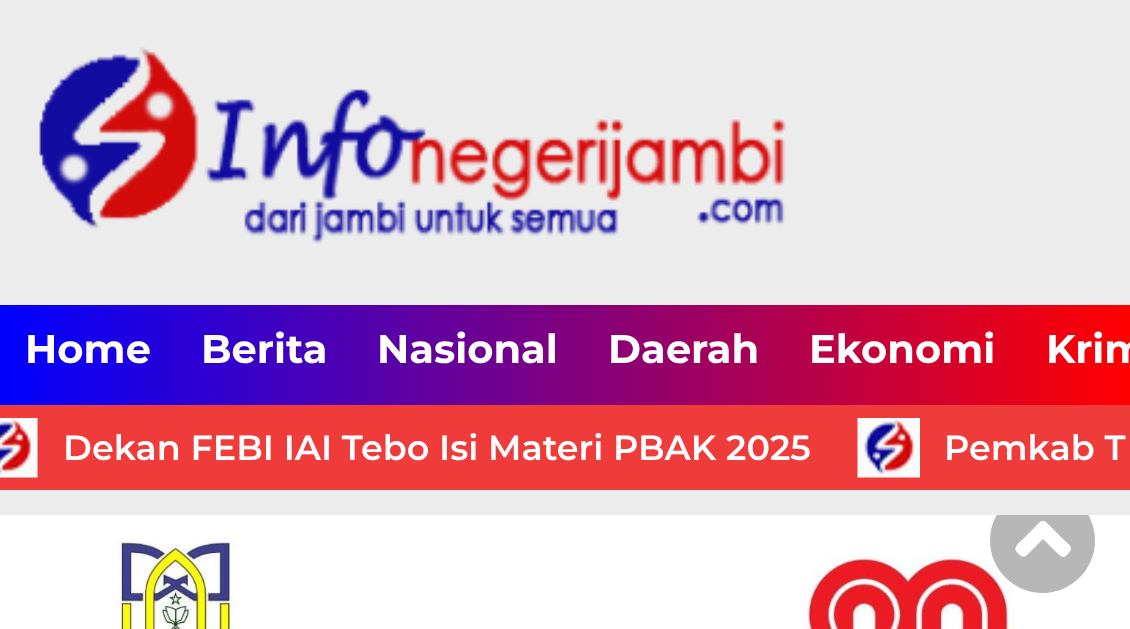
<!DOCTYPE html>
<meta charset="utf-8">
<style>body { margin: 0 } canvas { display: block }</style>
<canvas id="canvas" width="1130" height="629"></canvas>
<script type="module">
  const canvas = document.getElementById("canvas");
  const g = canvas.getContext("2d");
  g.miterLimit = 4;
  g.fontKerning = "normal";
  function drawText(s, x, y, [font, color]) {
    g.font = font;
    g.fillStyle = color;
    g.fillText(s, x, y);
  }
  function fillBox(x, y, w, h, color) {
    g.fillStyle = color;
    g.fillRect(x, y, w, h);
  }
  async function drawPicture(src, x, y, w, h) {
    const img = new Image();
    img.src = src;
    await img.decode();
    g.drawImage(img, x, y, w, h);
  }
  let gradient;

  const s1 = ["bold 40px Montserrat", "#FFFFFF"];
  const s2 = ["600 35px Montserrat", "#FFFFFF"];

  fillBox(0, 0, 1130, 629, "#FFFFFF");
  await drawPicture("pic4.png", 0, 515, 1130, 114);
  g.fillStyle = "rgba(153, 153, 153, 0.7)";
  g.beginPath();
  g.arc(1042.5, 540.5, 52.5, 0, Math.PI * 2);
  g.fill();
  fillBox(0, 0, 1130, 515, "#ECECEC");
  await drawPicture("pic1.png", 39, 47, 747, 197);
  gradient = g.createLinearGradient(0, 355, 1130, 355);
  gradient.addColorStop(0, "#0000FF");
  gradient.addColorStop(1, "#FF0000");
  g.fillStyle = gradient;
  g.fillRect(0, 305, 1130, 100);
  drawText("Home", 25, 363, s1);
  drawText("Berita", 201, 363, s1);
  drawText("Nasional", 377, 363, s1);
  drawText("Daerah", 608, 363, s1);
  drawText("Ekonomi", 809, 363, s1);
  drawText("Krim", 1046, 363, s1);
  fillBox(0, 405, 1130, 85, "#F03B3B");
  await drawPicture("pic2.png", 0, 418, 38, 60);
  drawText("Dekan FEBI IAI Tebo Isi Materi PBAK 2025", 63, 460, s2);
  await drawPicture("pic3.png", 857, 418, 63, 60);
  drawText("Pemkab T", 944, 460, s2);
  g.beginPath();
  g.moveTo(1046, 522);
  g.lineTo(1062, 538);
  g.bezierCurveTo(1071, 547, 1075, 547, 1066, 556);
  g.bezierCurveTo(1062, 560, 1057, 552, 1054, 550);
  g.lineTo(1043, 539);
  g.lineTo(1032, 550);
  g.bezierCurveTo(1030, 552, 1025, 559, 1021, 556);
  g.bezierCurveTo(1011, 548, 1016, 546, 1024, 538);
  g.lineTo(1036, 526);
  g.bezierCurveTo(1038, 524, 1042, 518, 1046, 522);
  g.closePath();
  g.fill();
</script>
